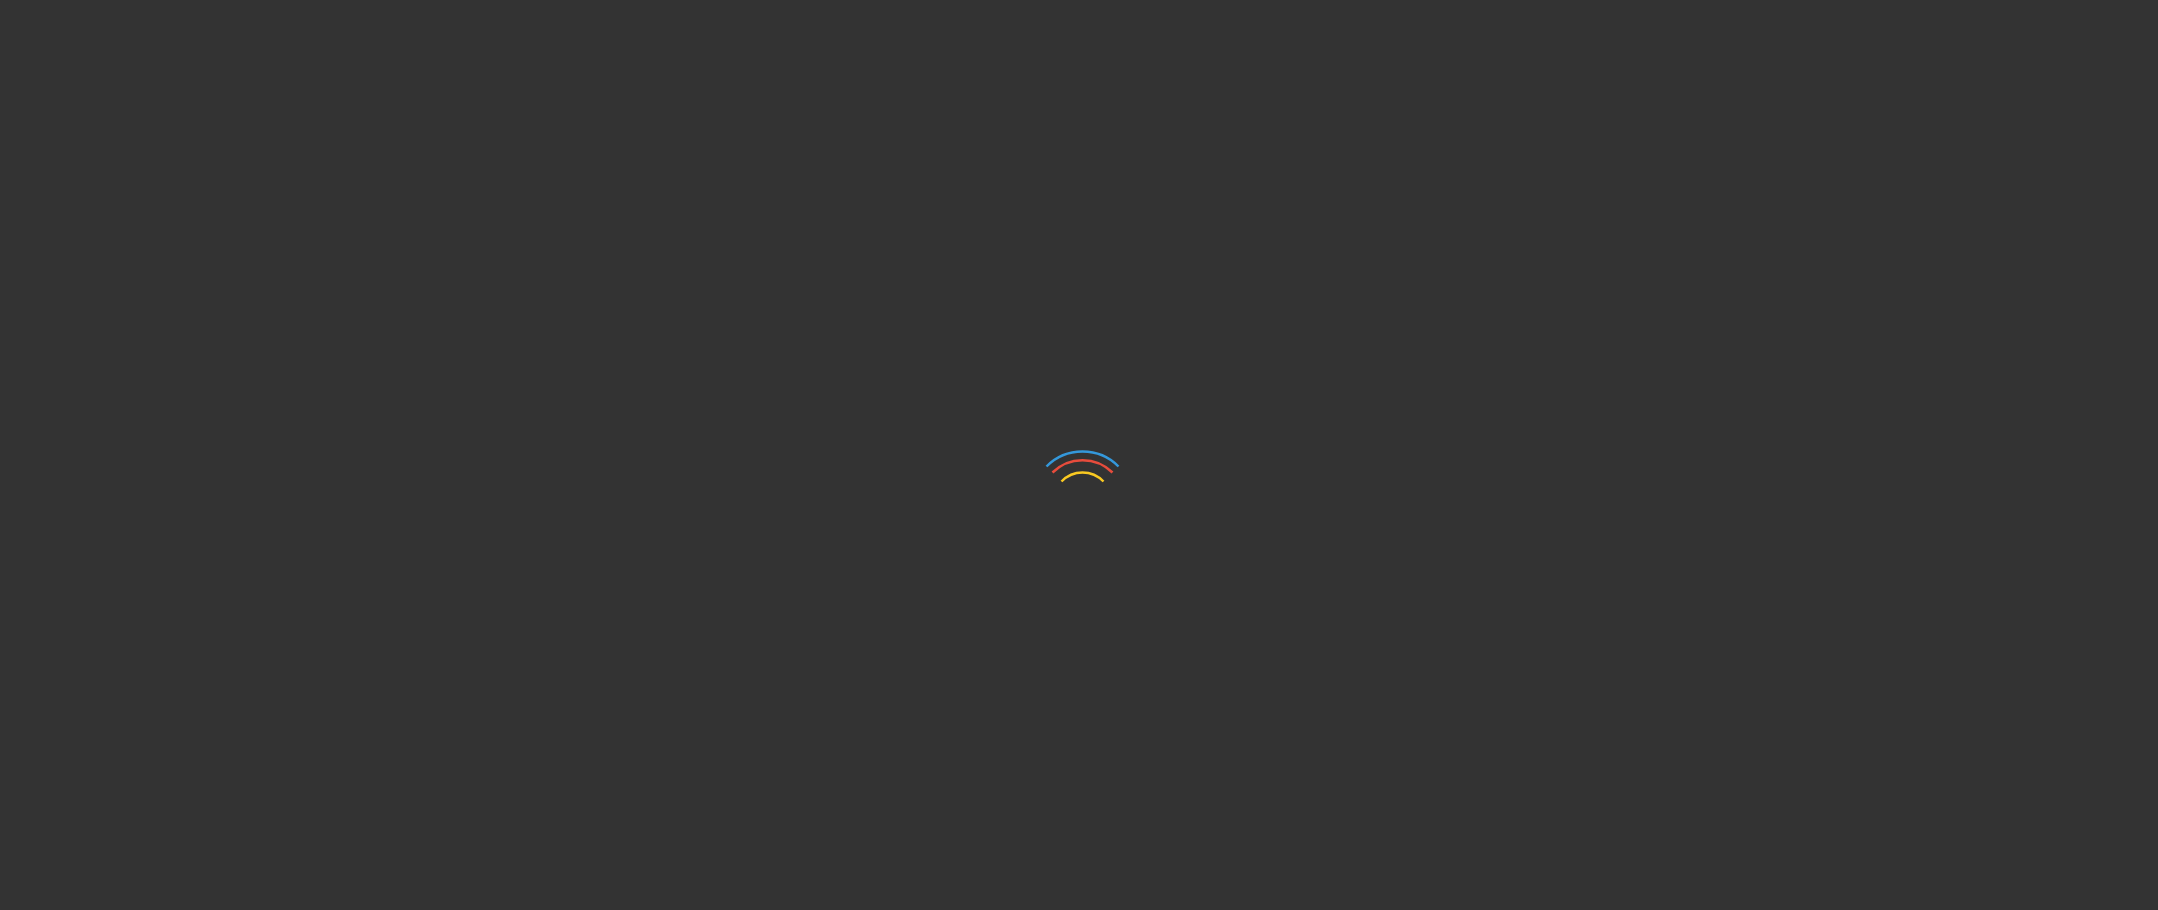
<!DOCTYPE html>
<meta charset="utf-8">
<style>body { margin: 0 } canvas { display: block }</style>
<canvas id="canvas" width="2158" height="910"></canvas>
<script type="module">
  const canvas = document.getElementById("canvas");
  const g = canvas.getContext("2d");
  g.miterLimit = 4;
  g.fontKerning = "normal";
  function fillBox(x, y, w, h, color) {
    g.fillStyle = color;
    g.fillRect(x, y, w, h);
  }

  fillBox(0, 0, 2158, 910, "#333333");
  g.beginPath();
  g.moveTo(1046.5, 466.5);
  g.bezierCurveTo(1066, 446.5, 1099, 446.5, 1118.5, 466.5);
  g.strokeStyle = "#3498DB";
  g.lineWidth = 2.5;
  g.stroke();
  g.beginPath();
  g.moveTo(1052.5, 472.5);
  g.bezierCurveTo(1069, 456, 1096, 456, 1112.5, 472.5);
  g.strokeStyle = "#E74C3C";
  g.stroke();
  g.beginPath();
  g.moveTo(1061.5, 481.5);
  g.bezierCurveTo(1073, 469.5, 1092, 469.5, 1103.5, 481.5);
  g.strokeStyle = "#F9C922";
  g.stroke();
</script>
